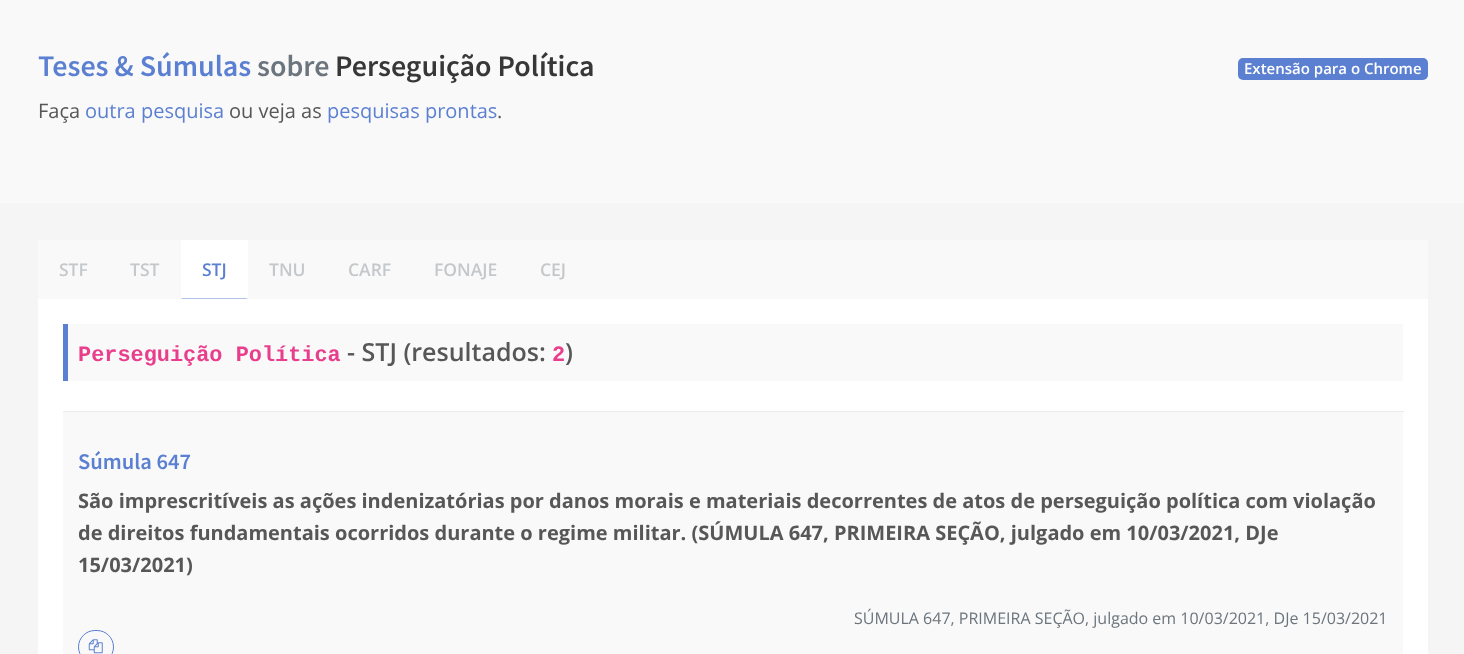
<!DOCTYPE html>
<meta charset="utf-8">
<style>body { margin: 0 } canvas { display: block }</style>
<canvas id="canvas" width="1464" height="654"></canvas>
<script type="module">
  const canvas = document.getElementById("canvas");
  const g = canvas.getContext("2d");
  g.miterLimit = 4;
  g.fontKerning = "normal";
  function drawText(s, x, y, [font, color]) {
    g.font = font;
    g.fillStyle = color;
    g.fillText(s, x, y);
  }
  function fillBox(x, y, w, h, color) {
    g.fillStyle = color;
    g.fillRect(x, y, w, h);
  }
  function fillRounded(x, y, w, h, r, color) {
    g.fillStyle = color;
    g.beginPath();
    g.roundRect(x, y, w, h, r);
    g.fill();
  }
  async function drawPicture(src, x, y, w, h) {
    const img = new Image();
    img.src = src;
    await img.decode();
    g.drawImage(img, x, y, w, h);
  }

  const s1 = ["600 30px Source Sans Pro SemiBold", "#5C80D1"];
  const s2 = ["600 30px Source Sans Pro SemiBold", "#6C757D"];
  const s3 = ["600 30px Source Sans Pro SemiBold", "#373737"];
  const s4 = ["600 15px Open Sans", "#FFFFFF"];
  const s5 = ["20px Open Sans", "#575757"];
  const s6 = ["20px Open Sans", "#5C80D1"];
  const s7 = ["600 17.5px Open Sans", "#C5C8CB"];
  const s8 = ["600 17.5px Open Sans", "#5C80D1"];
  const s9 = ["bold 21.9px Liberation Mono", "#E83E8C"];
  const s10 = ["600 25px Open Sans", "#575757"];
  const s11 = ["600 22.5px Source Sans Pro SemiBold", "#5C80D1"];
  const s12 = ["bold 20px Open Sans", "#575757"];
  const s13 = ["16px Open Sans", "#6C757D"];

  fillBox(0, 0, 1464, 654, "#F5F5F5");
  fillBox(0, 0, 1464, 203, "#F9F9F9");
  drawText("Teses & Súmulas", 38, 76, s1);
  drawText("sobre", 257, 76, s2);
  drawText("Perseguição Política", 335, 76, s3);
  fillRounded(1238, 58, 190, 22, 5, "#5C80D1");
  drawText("Extensão para o Chrome", 1244, 74, s4);
  drawText("Faça", 38, 118, s5);
  drawText("outra pesquisa", 85, 118, s6);
  drawText("ou veja as", 229, 118, s5);
  drawText("pesquisas prontas", 327, 118, s6);
  drawText(".", 497, 118, s5);
  fillBox(38, 299, 1390, 355, "#FFFFFF");
  fillBox(38, 240, 1390, 59, "#F9F9F9");
  drawText("STF", 59, 276, s7);
  drawText("TST", 130, 276, s7);
  fillBox(181, 240, 67, 59, "#FFFFFF");
  g.fillStyle = "#B1C2E9";
  g.beginPath();
  g.moveTo(248, 299);
  g.lineTo(181, 299);
  g.lineTo(182, 298);
  g.lineTo(246, 298);
  g.closePath();
  g.fill();
  drawText("STJ", 202, 276, s8);
  drawText("TNU", 269, 276, s7);
  drawText("CARF", 348, 276, s7);
  drawText("FONAJE", 434, 276, s7);
  drawText("CEJ", 540, 276, s7);
  fillBox(68, 324, 1335, 57, "#F9F9F9");
  fillBox(63, 324, 5, 57, "#5C80D1");
  drawText("Perseguição Política", 78, 361, s9);
  drawText("- STJ (resultados:", 347, 361, s10);
  drawText("2", 552, 361, s9);
  drawText(")", 565, 361, s10);
  fillBox(63, 412, 1340, 242, "#F9F9F9");
  fillBox(63, 411, 1341, 1, "#EBEBEB");
  drawText("Súmula 647", 78, 469, s11);
  drawText("São imprescritíveis as ações indenizatórias por danos morais e materiais decorrentes de atos de perseguição política com violação", 78, 508, s12);
  drawText("de direitos fundamentais ocorridos durante o regime militar. (SÚMULA 647, PRIMEIRA SEÇÃO, julgado em 10/03/2021, DJe", 78, 540, s12);
  drawText("15/03/2021)", 78, 572, s12);
  drawText("SÚMULA 647, PRIMEIRA SEÇÃO, julgado em 10/03/2021, DJe 15/03/2021", 854, 624, s13);
  g.beginPath();
  g.roundRect(78.5, 630.5, 35, 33, 16.5);
  g.strokeStyle = "#5C80D1";
  g.stroke();
  await drawPicture("pic1.png", 88, 639, 15, 15);
</script>
